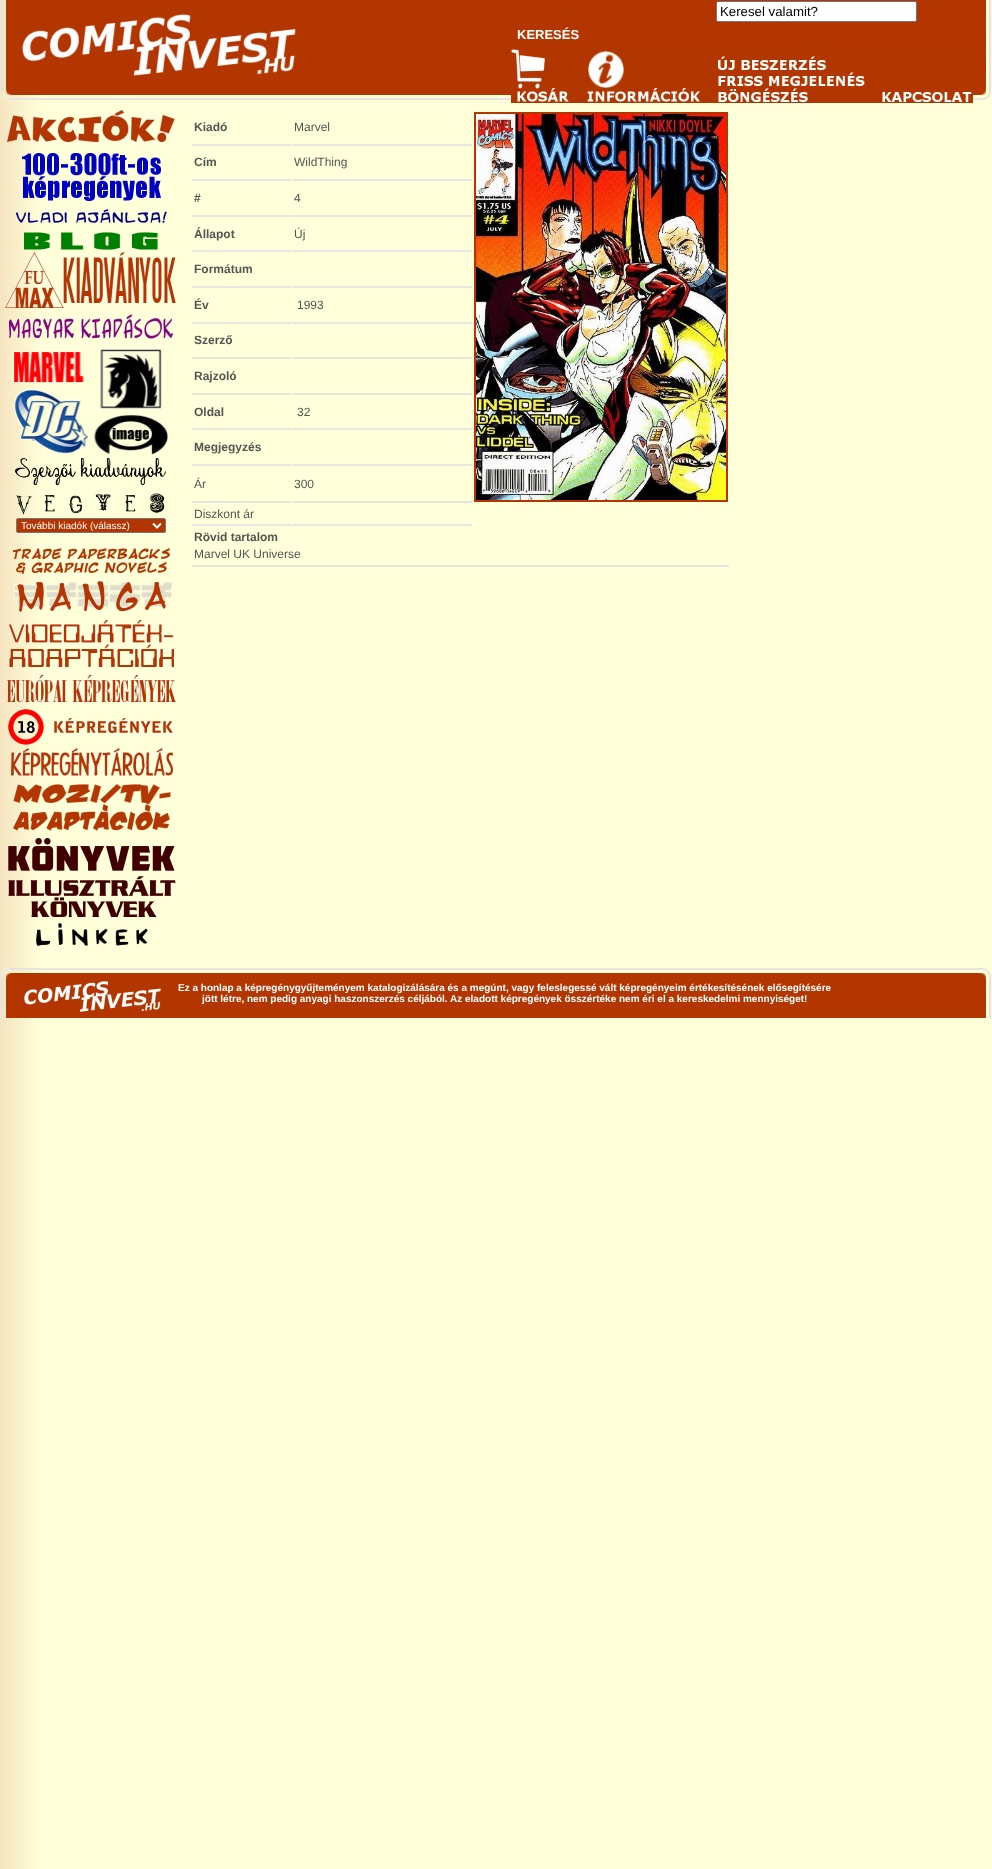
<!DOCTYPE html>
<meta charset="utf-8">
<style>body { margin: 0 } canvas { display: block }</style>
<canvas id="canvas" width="992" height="1869"></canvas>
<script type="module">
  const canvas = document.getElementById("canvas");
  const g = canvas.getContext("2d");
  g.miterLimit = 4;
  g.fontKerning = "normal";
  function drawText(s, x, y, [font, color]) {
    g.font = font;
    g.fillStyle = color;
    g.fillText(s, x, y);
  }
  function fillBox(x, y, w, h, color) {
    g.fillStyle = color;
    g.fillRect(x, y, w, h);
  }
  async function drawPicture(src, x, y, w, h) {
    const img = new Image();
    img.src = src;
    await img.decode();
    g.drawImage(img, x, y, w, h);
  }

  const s1 = ["13.25px Liberation Sans", "#000000"];
  const s2 = ["bold 13px Liberation Sans", "#FFFFFF"];
  const s3 = ["10px Liberation Sans", "#FFFFFF"];
  const s4 = ["bold 12px Liberation Sans", "#555555"];
  const s5 = ["12px Liberation Sans", "#555555"];
  const s6 = ["bold 10px Liberation Sans", "#FFFFFF"];

  fillBox(0, 0, 992, 1869, "#FFFFFF");
  await drawPicture("pic1.png", 0, 0, 992, 1869);
  await drawPicture("pic2.png", 1, 0, 990, 100);
  g.beginPath();
  g.roundRect(716.5, 1.5, 200, 20, 1.5);
  g.fill();
  g.strokeStyle = "#767676";
  g.stroke();
  drawText("Keresel valamit?", 720, 16, s1);
  drawText("KERESÉS", 517, 39, s2);
  await drawPicture("pic3.png", 511, 49, 462, 54);
  await drawPicture("pic4.png", 7, 110, 168, 32);
  await drawPicture("pic5.png", 22, 153, 139, 48);
  await drawPicture("pic6.png", 16, 209, 151, 14);
  await drawPicture("pic7.png", 24, 232, 134, 18);
  await drawPicture("pic8.png", 5, 252, 171, 56);
  await drawPicture("pic9.png", 9, 314, 164, 25);
  await drawPicture("pic10.png", 13, 349, 156, 106);
  await drawPicture("pic11.png", 15, 458, 151, 27);
  await drawPicture("pic12.png", 16, 493, 149, 22);
  g.fillStyle = "#B33600";
  g.beginPath();
  g.roundRect(16.5, 518.5, 149, 14, 1.5);
  g.fill();
  g.stroke();
  g.beginPath();
  g.moveTo(153, 523.5);
  g.lineTo(157, 527.5);
  g.lineTo(161, 523.5);
  g.strokeStyle = "#FFFFFF";
  g.lineWidth = 2;
  g.stroke();
  drawText("További kiadók (válassz)", 21, 529, s3);
  await drawPicture("pic13.png", 13, 548, 157, 26);
  await drawPicture("pic14.png", 7, 581, 169, 195);
  await drawPicture("pic15.png", 13, 784, 158, 47);
  await drawPicture("pic16.png", 8, 838, 167, 33);
  await drawPicture("pic17.png", 8, 876, 168, 41);
  await drawPicture("pic18.png", 36, 923, 112, 23);
  fillBox(192, 144, 99, 2, "#E6E5E0");
  drawText("Kiadó", 194, 131, s4);
  fillBox(292, 144, 180, 2, "#E6E5E0");
  drawText("Marvel", 294, 131, s5);
  g.strokeStyle = "#B33600";
  g.strokeRect(475, 113, 252, 388);
  await drawPicture("pic19.png", 476, 114, 250, 386);
  fillBox(192, 179, 99, 2, "#E6E5E0");
  drawText("Cím", 194, 166, s4);
  fillBox(292, 179, 180, 2, "#E6E5E0");
  drawText("WildThing", 294, 166, s5);
  fillBox(192, 215, 99, 2, "#E6E5E0");
  drawText("#", 194, 202, s4);
  fillBox(292, 215, 180, 2, "#E6E5E0");
  drawText("4", 294, 202, s5);
  fillBox(192, 250, 99, 2, "#E6E5E0");
  drawText("Állapot", 194, 238, s4);
  fillBox(292, 250, 180, 2, "#E6E5E0");
  drawText("Új", 294, 238, s5);
  fillBox(192, 286, 99, 2, "#E6E5E0");
  drawText("Formátum", 194, 273, s4);
  fillBox(292, 286, 180, 2, "#E6E5E0");
  fillBox(192, 322, 99, 2, "#E6E5E0");
  drawText("Év", 194, 309, s4);
  fillBox(292, 322, 180, 2, "#E6E5E0");
  drawText("1993", 297, 309, s5);
  fillBox(192, 357, 99, 2, "#E6E5E0");
  drawText("Szerző", 194, 344, s4);
  fillBox(292, 357, 180, 2, "#E6E5E0");
  fillBox(192, 393, 99, 2, "#E6E5E0");
  drawText("Rajzoló", 194, 380, s4);
  fillBox(292, 393, 180, 2, "#E6E5E0");
  fillBox(192, 428, 99, 2, "#E6E5E0");
  drawText("Oldal", 194, 416, s4);
  fillBox(292, 428, 180, 2, "#E6E5E0");
  drawText("32", 297, 416, s5);
  fillBox(192, 464, 99, 2, "#E6E5E0");
  drawText("Megjegyzés", 194, 451, s4);
  fillBox(292, 464, 180, 2, "#E6E5E0");
  fillBox(192, 501, 99, 2, "#E6E5E0");
  drawText("Ár", 194, 488, s5);
  fillBox(292, 501, 180, 2, "#E6E5E0");
  drawText("300", 294, 488, s5);
  fillBox(192, 524, 99, 2, "#E6E5E0");
  drawText("Diszkont ár", 194, 518, s5);
  fillBox(292, 524, 180, 2, "#E6E5E0");
  fillBox(192, 565, 537, 2, "#E6E5E0");
  drawText("Rövid tartalom", 194, 541, s4);
  drawText("Marvel UK Universe", 194, 558, s5);
  await drawPicture("pic20.png", 1, 968, 990, 50);
  drawText("Ez a honlap a képregénygyűjteményem katalogizálására és a megúnt, vagy feleslegessé vált képregényeim értékesítésének elősegítésére", 178, 991, s6);
  drawText("jött létre, nem pedig anyagi haszonszerzés céljából. Az eladott képregények összértéke nem éri el a kereskedelmi mennyiséget!", 202, 1002, s6);
</script>
